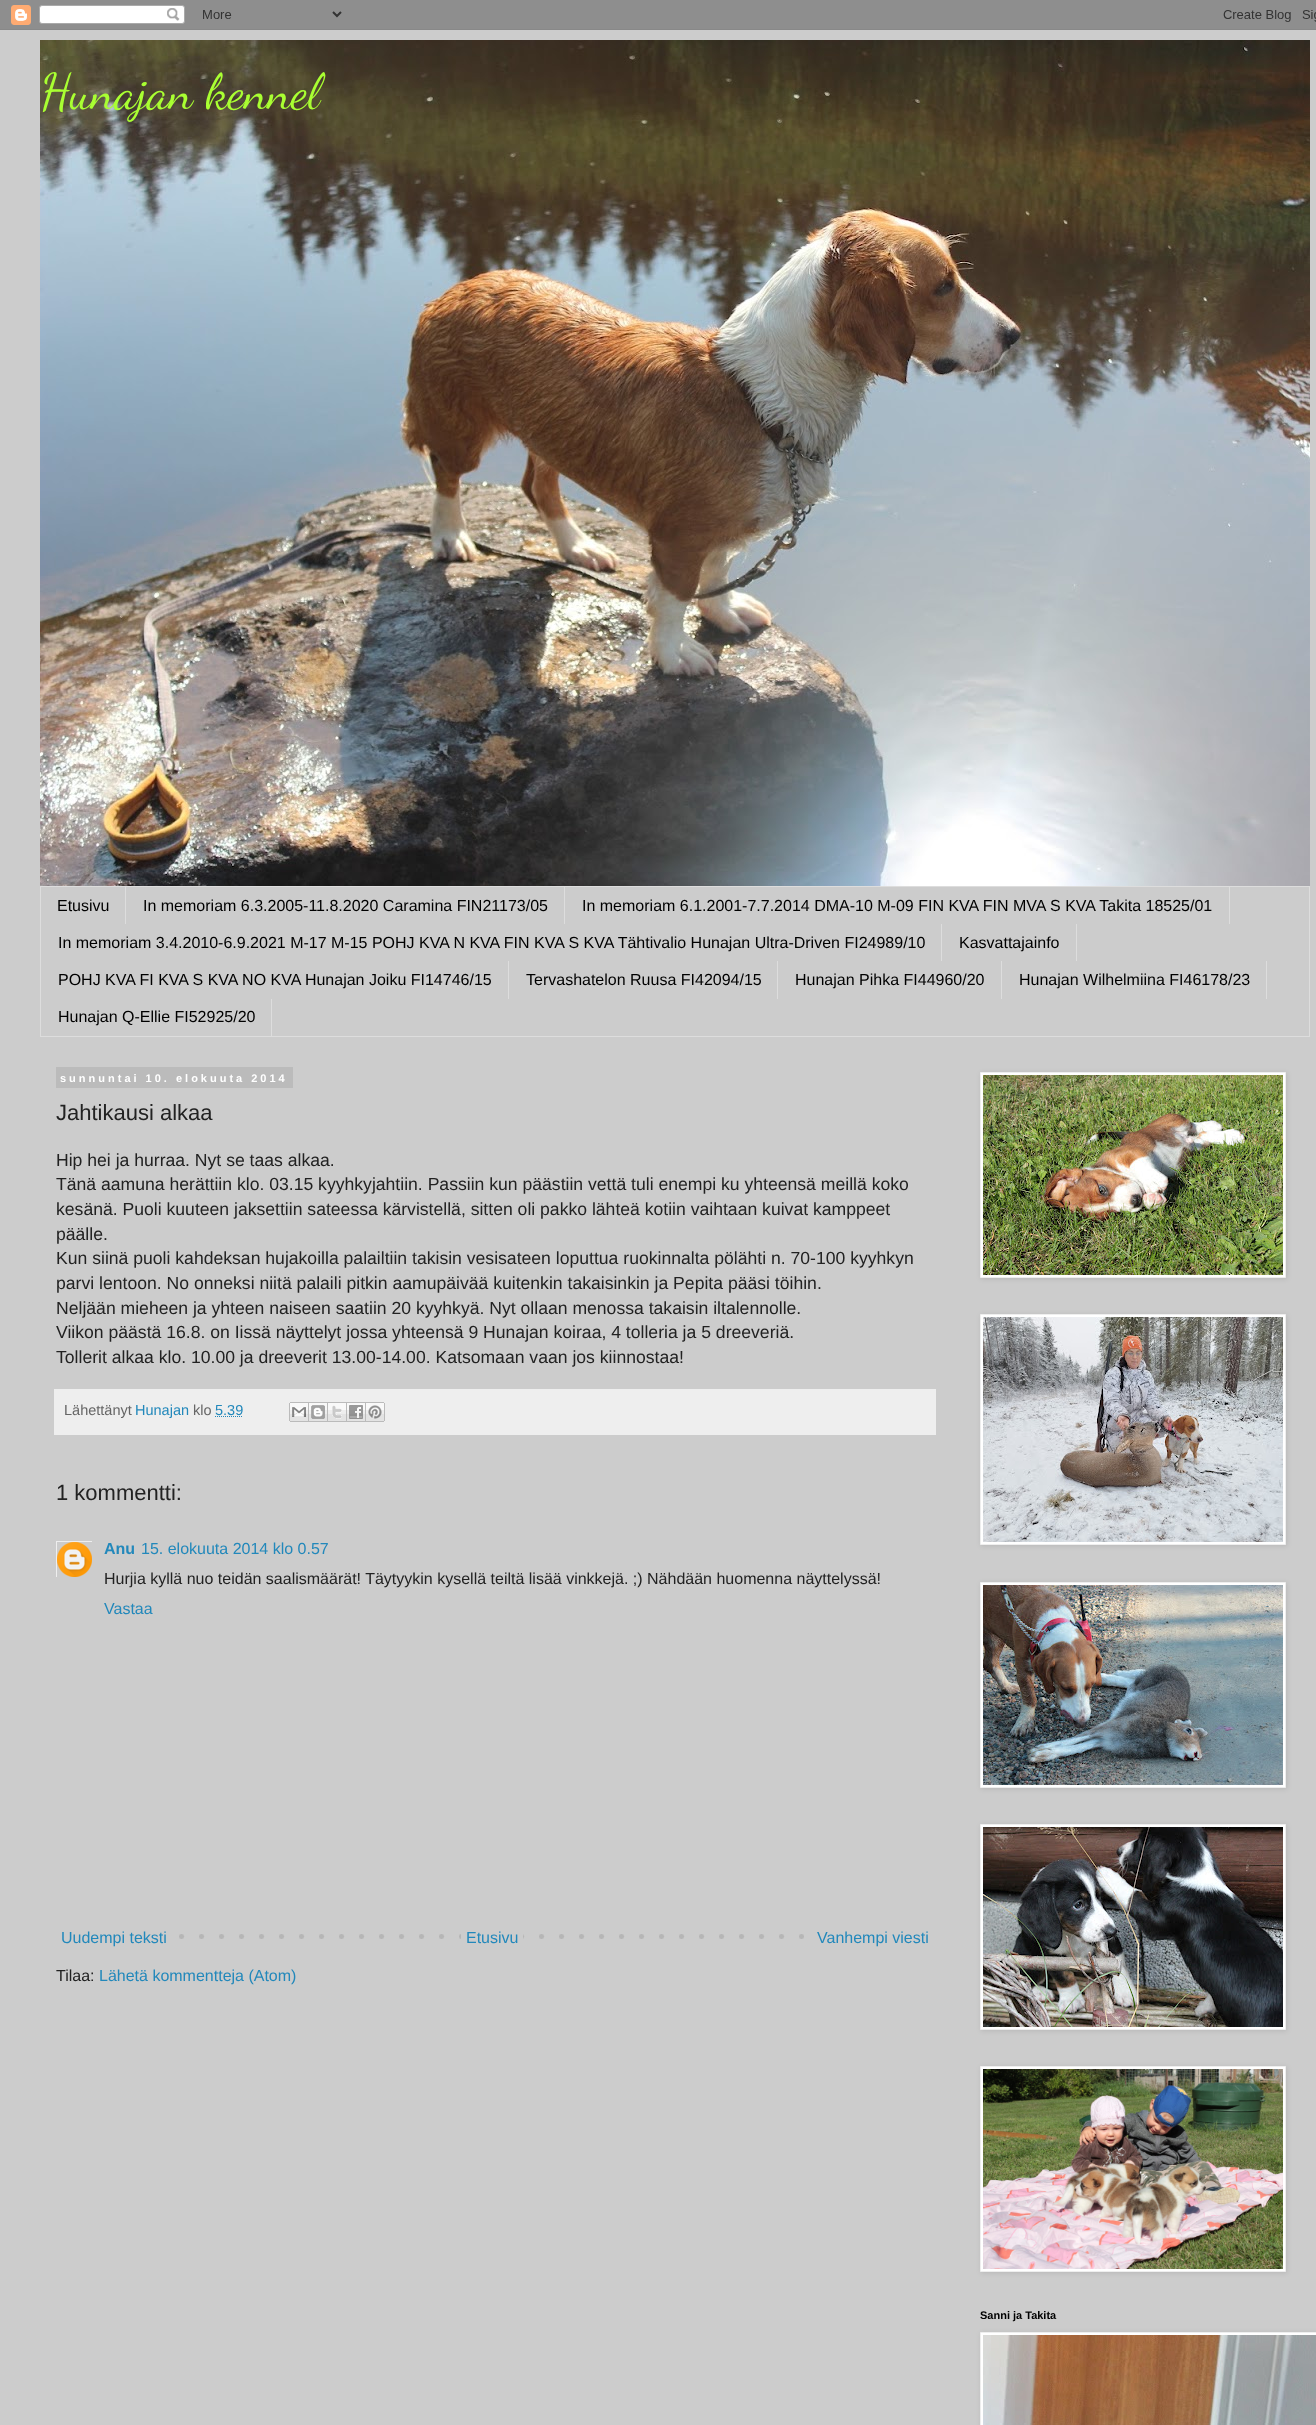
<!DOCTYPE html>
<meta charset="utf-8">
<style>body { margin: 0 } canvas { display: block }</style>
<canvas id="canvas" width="1316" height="2425"></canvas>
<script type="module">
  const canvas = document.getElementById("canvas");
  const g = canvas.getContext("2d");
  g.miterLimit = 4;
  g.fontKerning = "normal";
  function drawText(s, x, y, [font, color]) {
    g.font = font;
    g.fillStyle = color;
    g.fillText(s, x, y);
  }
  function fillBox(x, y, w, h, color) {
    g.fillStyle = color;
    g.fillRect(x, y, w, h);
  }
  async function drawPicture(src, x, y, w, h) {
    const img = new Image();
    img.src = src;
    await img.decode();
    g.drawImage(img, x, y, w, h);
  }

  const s1 = ["50px Dancing Script", "#A9FF32"];
  const s2 = ["16px Liberation Sans", "#000000"];
  const s3 = ["bold 11px Liberation Sans", "#FFFFFF"];
  const s4 = ["22px Liberation Sans", "#222222"];
  const s5 = ["17.6px Liberation Sans", "#222222"];
  const s6 = ["14.5px Liberation Sans", "#666666"];
  const s7 = ["14.5px Liberation Sans", "#2288BB"];
  const s8 = ["bold 16px Liberation Sans", "#2288BB"];
  const s9 = ["16px Liberation Sans", "#2288BB"];
  const s10 = ["16px Liberation Sans", "#222222"];
  const s11 = ["bold 11px Liberation Sans", "#000000"];

  fillBox(0, 0, 1316, 2425, "#444444");
  await drawPicture("pic1.png", 0, 0, 1316, 30);
  fillBox(0, 30, 1316, 2395, "#CCCCCC");
  await drawPicture("pic2.png", 40, 40, 1270, 846);
  drawText("Hunajan kennel", 40, 108, s1);
  g.strokeStyle = "#DDDDDD";
  g.strokeRect(40.5, 886.5, 1269, 150);
  fillBox(125, 887, 1, 37, "#DDDDDD");
  drawText("Etusivu", 57, 911, s2);
  fillBox(564, 887, 1, 37, "#DDDDDD");
  drawText("In memoriam 6.3.2005-11.8.2020 Caramina FIN21173/05", 143, 911, s2);
  fillBox(1229, 887, 1, 37, "#DDDDDD");
  drawText("In memoriam 6.1.2001-7.7.2014 DMA-10 M-09 FIN KVA FIN MVA S KVA Takita 18525/01", 582, 911, s2);
  fillBox(941, 924, 1, 37, "#DDDDDD");
  drawText("In memoriam 3.4.2010-6.9.2021 M-17 M-15 POHJ KVA N KVA FIN KVA S KVA Tähtivalio Hunajan Ultra-Driven FI24989/10", 58, 948, s2);
  fillBox(1076, 924, 1, 37, "#DDDDDD");
  drawText("Kasvattajainfo", 959, 948, s2);
  fillBox(508, 961, 1, 38, "#DDDDDD");
  drawText("POHJ KVA FI KVA S KVA NO KVA Hunajan Joiku FI14746/15", 58, 985, s2);
  fillBox(777, 961, 1, 38, "#DDDDDD");
  drawText("Tervashatelon Ruusa FI42094/15", 526, 985, s2);
  fillBox(1001, 961, 1, 38, "#DDDDDD");
  drawText("Hunajan Pihka FI44960/20", 795, 985, s2);
  fillBox(1266, 961, 1, 38, "#DDDDDD");
  drawText("Hunajan Wilhelmiina FI46178/23", 1019, 985, s2);
  fillBox(271, 999, 1, 37, "#DDDDDD");
  drawText("Hunajan Q-Ellie FI52925/20", 58, 1022, s2);
  fillBox(56, 1067, 237, 21, "#BBBBBB");
  g.letterSpacing = "3px";
  drawText("sunnuntai 10. elokuuta 2014", 60, 1082, s3);
  g.letterSpacing = "0px";
  drawText("Jahtikausi alkaa", 56, 1120, s4);
  drawText("Hip hei ja hurraa. Nyt se taas alkaa.", 56, 1166, s5);
  drawText("Tänä aamuna herättiin klo. 03.15 kyyhkyjahtiin. Passiin kun päästiin vettä tuli enempi ku yhteensä meillä koko", 56, 1190, s5);
  drawText("kesänä. Puoli kuuteen jaksettiin sateessa kärvistellä, sitten oli pakko lähteä kotiin vaihtaan kuivat kamppeet", 56, 1215, s5);
  drawText("päälle.", 56, 1240, s5);
  drawText("Kun siinä puoli kahdeksan hujakoilla palailtiin takisin vesisateen loputtua ruokinnalta pölähti n. 70-100 kyyhkyn", 56, 1264, s5);
  drawText("parvi lentoon. No onneksi niitä palaili pitkin aamupäivää kuitenkin takaisinkin ja Pepita pääsi töihin.", 56, 1289, s5);
  drawText("Neljään mieheen ja yhteen naiseen saatiin 20 kyyhkyä. Nyt ollaan menossa takaisin iltalennolle.", 56, 1314, s5);
  drawText("Viikon päästä 16.8. on Iissä näyttelyt jossa yhteensä 9 Hunajan koiraa, 4 tolleria ja 5 dreeveriä.", 56, 1338, s5);
  drawText("Tollerit alkaa klo. 10.00 ja dreeverit 13.00-14.00. Katsomaan vaan jos kiinnostaa!", 56, 1363, s5);
  fillBox(54, 1389, 882, 46, "#EEEEEE");
  drawText("Lähettänyt", 64, 1415, s6);
  drawText("Hunajan", 135, 1415, s7);
  drawText("klo", 193, 1415, s6);
  drawText("5.39", 215, 1415, s7);
  g.beginPath();
  g.moveTo(215, 1416.5);
  g.lineTo(243, 1416.5);
  g.strokeStyle = "#2288BB";
  g.setLineDash([1, 1]);
  g.stroke();
  await drawPicture("pic3.png", 289, 1402, 20, 20);
  await drawPicture("pic4.png", 309, 1402, 19, 20);
  await drawPicture("pic5.png", 328, 1402, 19, 20);
  await drawPicture("pic6.png", 347, 1402, 19, 20);
  await drawPicture("pic7.png", 366, 1402, 19, 20);
  drawText("1 kommentti:", 56, 1500, s4);
  g.save();
  g.beginPath();
  g.rect(56, 1541, 36, 36);
  g.clip();
  g.strokeStyle = "#EEEEEE";
  g.setLineDash([]);
  g.strokeRect(56.5, 1541.5, 36, 36);
  g.restore();
  await drawPicture("pic8.png", 57, 1542, 35, 35);
  drawText("Anu", 104, 1554, s8);
  drawText("15. elokuuta 2014 klo 0.57", 141, 1554, s9);
  drawText("Hurjia kyllä nuo teidän saalismäärät! Täytyykin kysellä teiltä lisää vinkkejä. ;) Nähdään huomenna näyttelyssä!", 104, 1584, s10);
  drawText("Vastaa", 104, 1614, s9);
  await drawPicture("pic9.png", 179, 1934, 625, 5);
  drawText("Uudempi teksti", 61, 1943, s9);
  fillBox(461, 1934, 62, 5, "#CCCCCC");
  drawText("Etusivu", 466, 1943, s9);
  drawText("Vanhempi viesti", 817, 1943, s9);
  drawText("Tilaa:", 56, 1981, s10);
  drawText("Lähetä kommentteja (Atom)", 99, 1981, s9);
  g.fillStyle = "rgba(0, 0, 0, 0.1)";
  g.filter = "blur(2.5px)";
  g.beginPath();
  g.rect(981, 1073, 306, 206);
  g.fill();
  g.filter = "none";
  g.fillStyle = "#FFFFFF";
  g.beginPath();
  g.rect(980.5, 1072.5, 305, 205);
  g.fill();
  g.strokeStyle = "#EEEEEE";
  g.setLineDash([]);
  g.stroke();
  await drawPicture("pic10.png", 983, 1075, 300, 200);
  g.fillStyle = "rgba(0, 0, 0, 0.1)";
  g.filter = "blur(2.5px)";
  g.beginPath();
  g.rect(981, 1315, 306, 231);
  g.fill();
  g.filter = "none";
  g.fillStyle = "#FFFFFF";
  g.beginPath();
  g.rect(980.5, 1314.5, 305, 230);
  g.fill();
  g.stroke();
  await drawPicture("pic11.png", 983, 1317, 300, 225);
  g.fillStyle = "rgba(0, 0, 0, 0.1)";
  g.filter = "blur(2.5px)";
  g.beginPath();
  g.rect(981, 1583, 306, 206);
  g.fill();
  g.filter = "none";
  g.fillStyle = "#FFFFFF";
  g.beginPath();
  g.rect(980.5, 1582.5, 305, 205);
  g.fill();
  g.stroke();
  await drawPicture("pic12.png", 983, 1585, 300, 200);
  g.fillStyle = "rgba(0, 0, 0, 0.1)";
  g.filter = "blur(2.5px)";
  g.beginPath();
  g.rect(981, 1825, 306, 206);
  g.fill();
  g.filter = "none";
  g.fillStyle = "#FFFFFF";
  g.beginPath();
  g.rect(980.5, 1824.5, 305, 205);
  g.fill();
  g.stroke();
  await drawPicture("pic13.png", 983, 1827, 300, 200);
  g.fillStyle = "rgba(0, 0, 0, 0.1)";
  g.filter = "blur(2.5px)";
  g.beginPath();
  g.rect(981, 2067, 306, 206);
  g.fill();
  g.filter = "none";
  g.fillStyle = "#FFFFFF";
  g.beginPath();
  g.rect(980.5, 2066.5, 305, 205);
  g.fill();
  g.stroke();
  await drawPicture("pic14.png", 983, 2069, 300, 200);
  drawText("Sanni ja Takita", 980, 2319, s11);
  g.fillStyle = "rgba(0, 0, 0, 0.1)";
  g.filter = "blur(2.5px)";
  g.beginPath();
  g.rect(981, 2333, 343, 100);
  g.fill();
  g.filter = "none";
  g.fillStyle = "#FFFFFF";
  g.beginPath();
  g.rect(980.5, 2332.5, 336, 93);
  g.fill();
  g.stroke();
  await drawPicture("pic15.png", 983, 2335, 333, 90);
</script>
